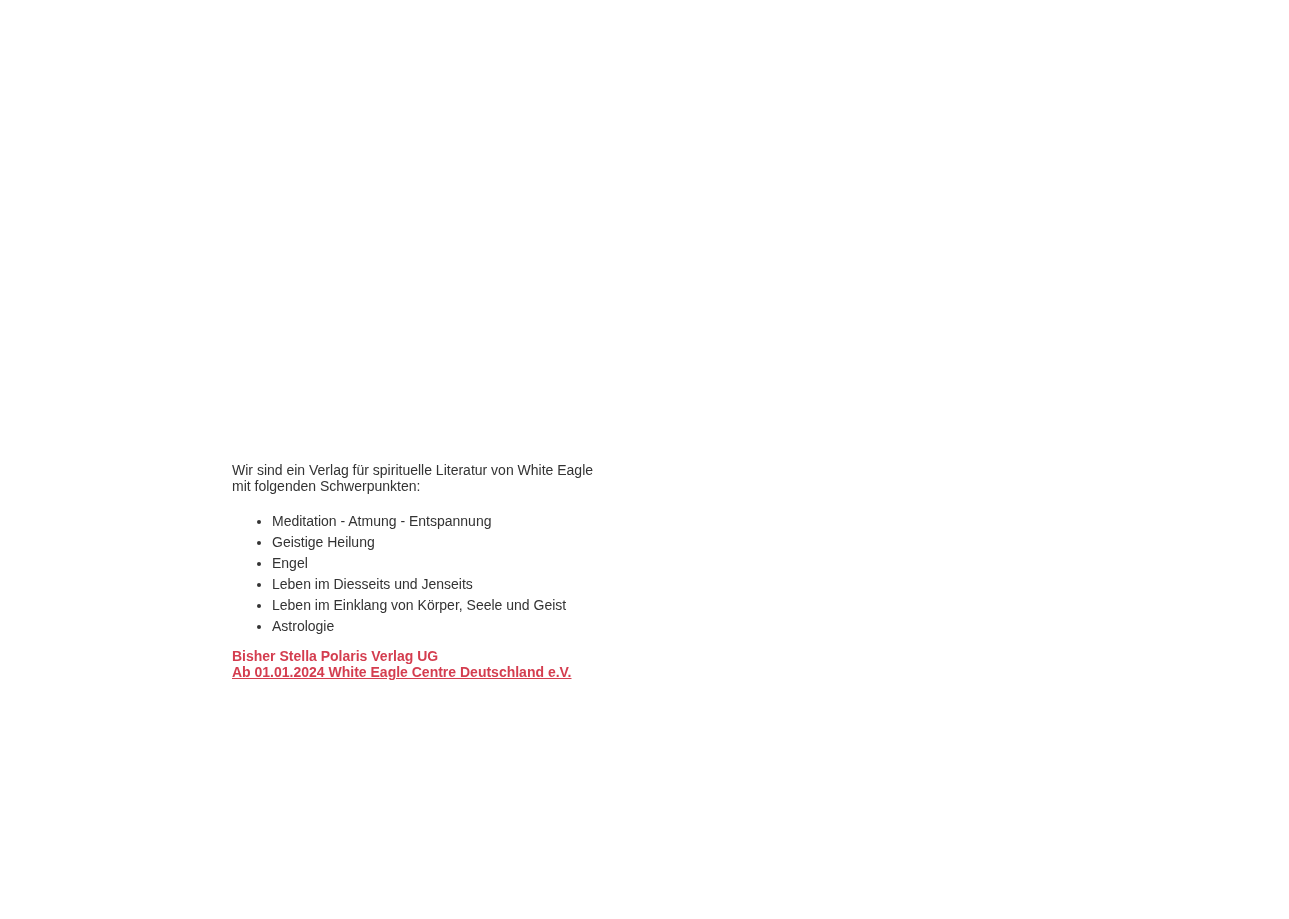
<!DOCTYPE html>
<meta charset="utf-8">
<style>body { margin: 0 } canvas { display: block }</style>
<canvas id="canvas" width="1289" height="919"></canvas>
<script type="module">
  const canvas = document.getElementById("canvas");
  const g = canvas.getContext("2d");
  g.miterLimit = 4;
  g.fontKerning = "normal";
  function fillBox(x, y, w, h, color) {
    g.fillStyle = color;
    g.fillRect(x, y, w, h);
  }
  async function drawPicture(src, x, y, w, h) {
    const img = new Image();
    img.src = src;
    await img.decode();
    g.drawImage(img, x, y, w, h);
  }

  fillBox(0, 0, 1289, 919, "#FFFFFF");
  await drawPicture("pic1.png", 232, 464, 361, 216);
</script>
